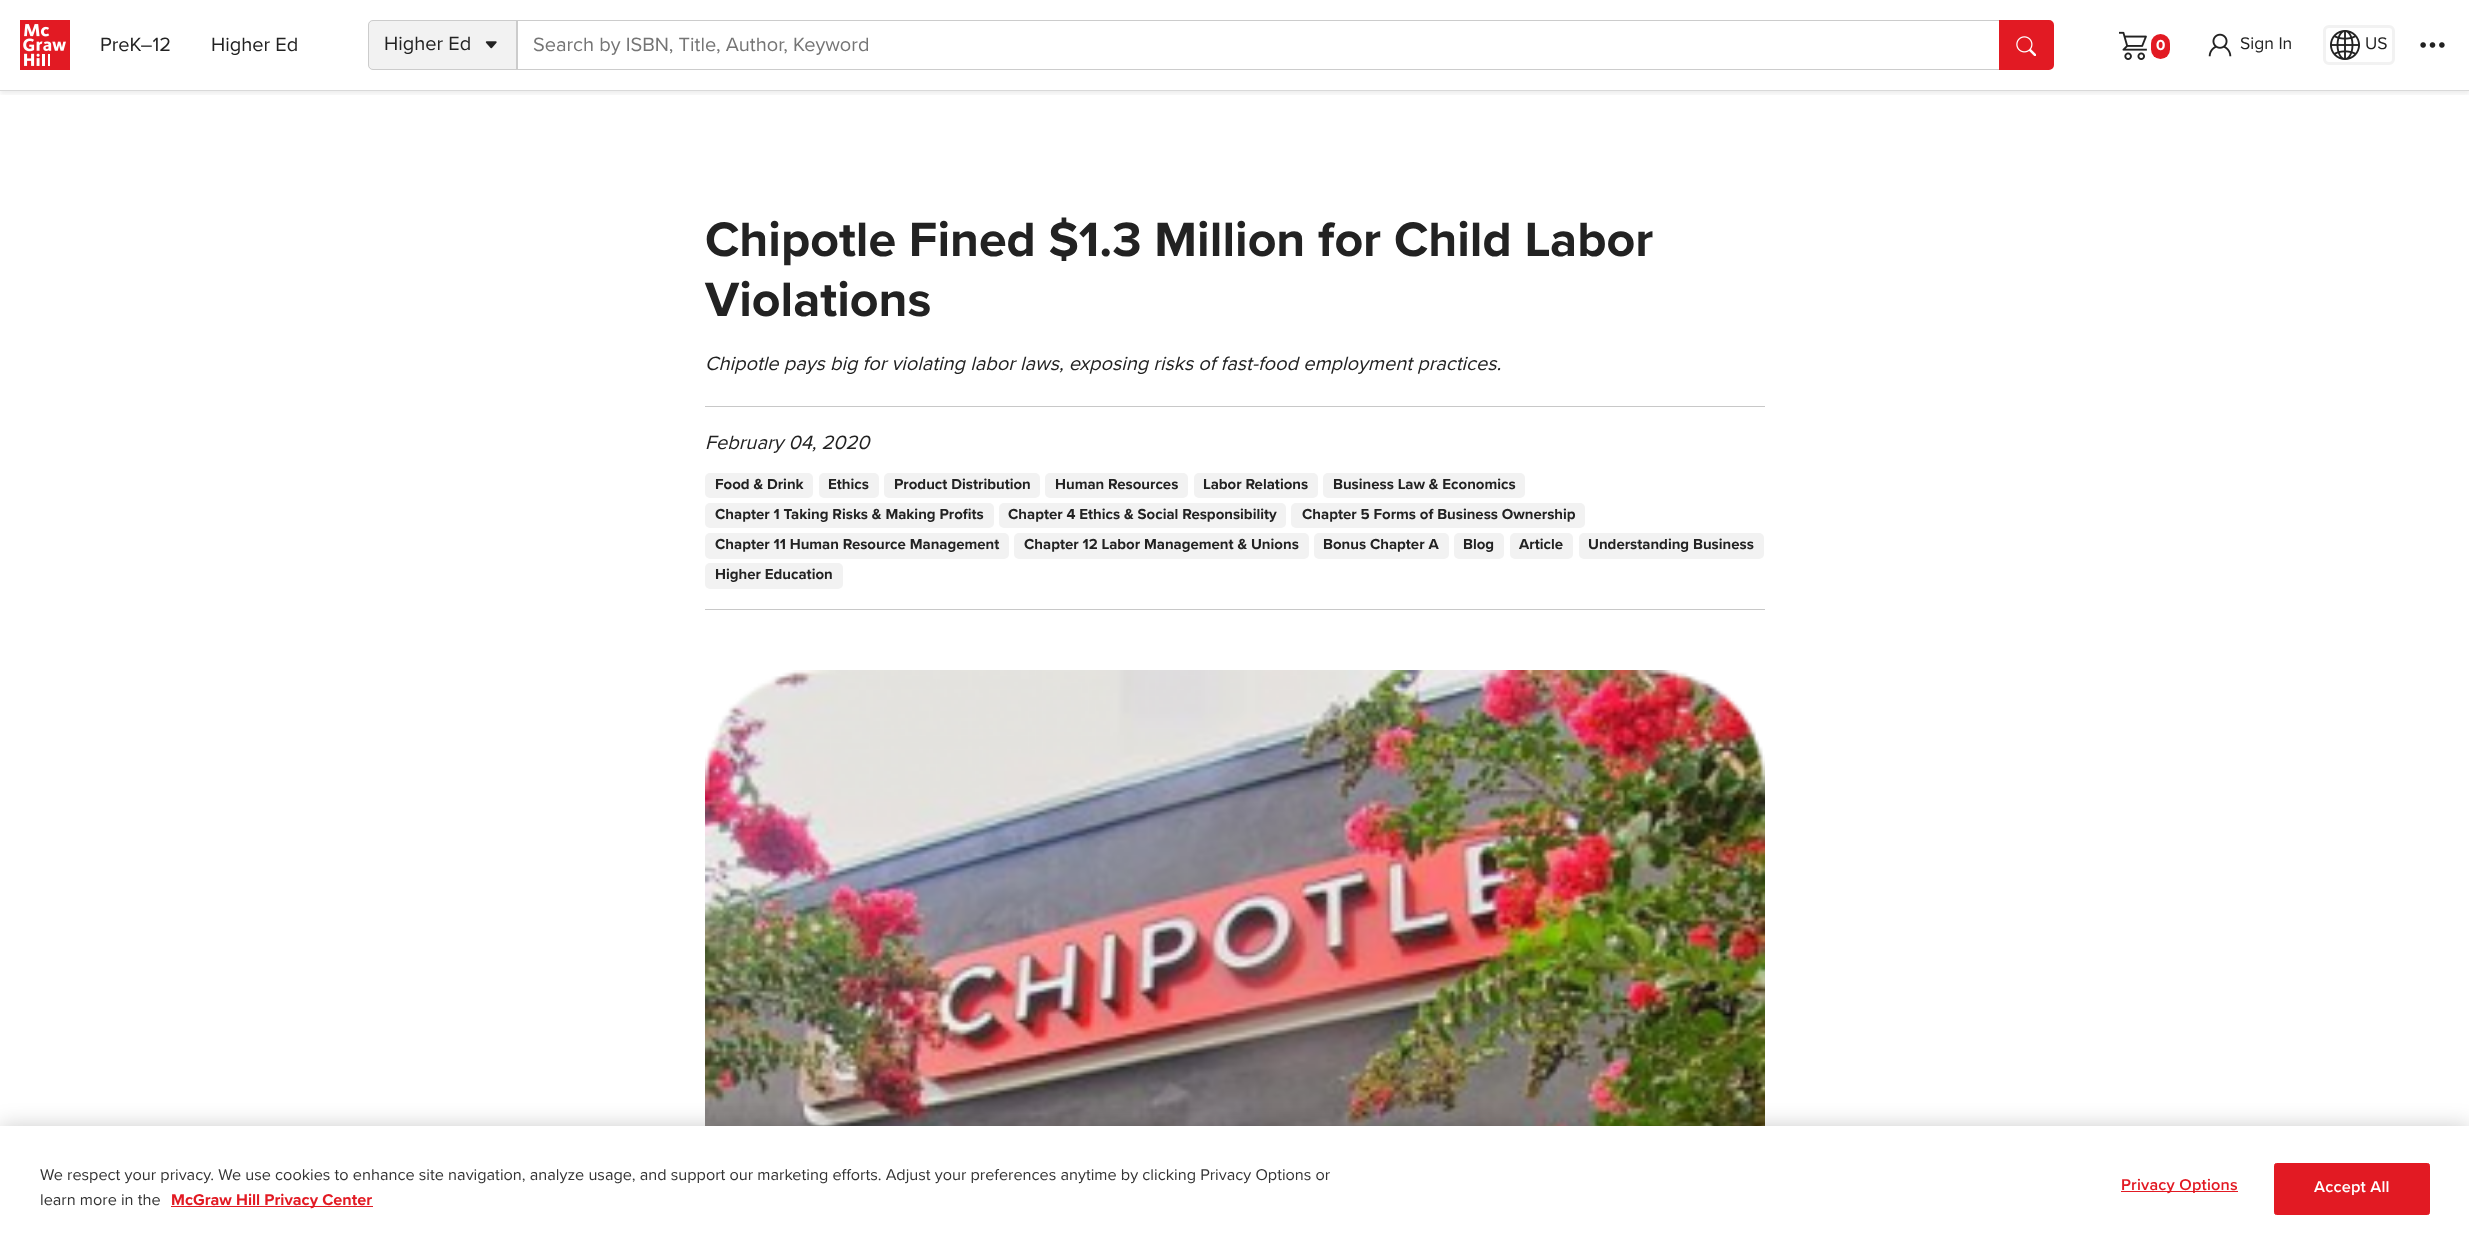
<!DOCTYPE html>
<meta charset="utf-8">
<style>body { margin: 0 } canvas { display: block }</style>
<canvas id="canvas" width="2469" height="1249"></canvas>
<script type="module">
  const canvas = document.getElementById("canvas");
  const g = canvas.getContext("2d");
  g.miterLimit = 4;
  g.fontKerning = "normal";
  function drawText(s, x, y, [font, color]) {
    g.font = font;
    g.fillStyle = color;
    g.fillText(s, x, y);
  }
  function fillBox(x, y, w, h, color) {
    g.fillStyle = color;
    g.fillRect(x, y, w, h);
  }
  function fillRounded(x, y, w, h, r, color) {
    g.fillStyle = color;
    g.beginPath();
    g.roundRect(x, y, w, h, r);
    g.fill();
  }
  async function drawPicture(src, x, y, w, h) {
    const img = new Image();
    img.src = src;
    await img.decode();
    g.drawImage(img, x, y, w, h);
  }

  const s1 = ["20px Proxima Nova", "#222222"];
  const s2 = ["20px Proxima Nova", "#757575"];
  const s3 = ["bold 15px Proxima Nova", "#FFFFFF"];
  const s4 = ["17.5px Proxima Nova", "#222222"];
  const s5 = ["bold 50px Proxima Nova", "#222222"];
  const s6 = ["italic 20px Proxima Nova", "#222222"];
  const s7 = ["bold 15px Proxima Nova", "#222222"];
  const s8 = ["16.25px Proxima Nova", "#333333"];
  const s9 = ["bold 16.25px Proxima Nova", "#E21A23"];
  const s10 = ["600 16.25px Proxima Nova", "#E21A23"];
  const s11 = ["600 16.25px Proxima Nova", "#FFFFFF"];

  fillBox(0, 0, 2469, 1249, "#FFFFFF");
  g.save();
  g.beginPath();
  g.rect(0, 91, 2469, 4);
  g.clip();
  g.fillStyle = "rgba(0, 0, 0, 0.07)";
  g.filter = "blur(2.5px)";
  g.beginPath();
  g.rect(0, 3, 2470, 91);
  g.fill();
  g.filter = "none";
  g.restore();
  fillBox(0, 90, 2469, 1, "#D9D9D9");
  await drawPicture("pic1.png", 20, 20, 50, 50);
  drawText("PreK–12", 100, 51, s1);
  drawText("Higher Ed", 211, 51, s1);
  g.fillStyle = "#F2F2F2";
  g.beginPath();
  g.roundRect(368, 20, 150, 50, [5, 0, 0, 5]);
  g.fill();
  await drawPicture("pic2.png", 485, 41, 12, 8);
  g.beginPath();
  g.roundRect(368.5, 20.5, 149, 49, [4.5, 0, 0, 4.5]);
  g.strokeStyle = "#CCCCCC";
  g.stroke();
  drawText("Higher Ed", 384, 50, s1);
  g.strokeRect(516.5, 20.5, 1483, 49);
  drawText("Search by ISBN, Title, Author, Keyword", 533, 51, s2);
  g.fillStyle = "#E21A23";
  g.beginPath();
  g.roundRect(2000.5, 21.5, 52, 47, [0, 3.5, 3.5, 0]);
  g.fill();
  g.strokeStyle = "#E21A23";
  g.lineWidth = 3;
  g.stroke();
  await drawPicture("pic3.png", 2016, 36, 20, 20);
  await drawPicture("pic4.png", 2119, 31, 28, 29);
  fillRounded(2151, 34, 19, 25, 9.5, "#E21A23");
  drawText("0", 2156, 50, s3);
  await drawPicture("pic5.png", 2208, 33, 24, 24);
  drawText("Sign In", 2240, 49, s4);
  g.beginPath();
  g.roundRect(2324.5, 26.5, 69, 37, 4.5);
  g.strokeStyle = "#F2F2F2";
  g.stroke();
  await drawPicture("pic6.png", 2330, 30, 30, 30);
  drawText("US", 2365, 49, s4);
  await drawPicture("pic7.png", 2420, 42, 25, 6);
  drawText("Chipotle Fined $1.3 Million for Child Labor", 705, 256, s5);
  drawText("Violations", 705, 316, s5);
  drawText("Chipotle pays big for violating labor laws, exposing risks of fast-food employment practices.", 705, 370, s6);
  fillBox(705, 406, 1060, 1, "#C8C8C8");
  drawText("February 04, 2020", 705, 449, s6);
  fillRounded(705, 473, 108, 25, 5, "#F2F2F2");
  drawText("Food & Drink", 715, 489, s7);
  fillRounded(819, 473, 60, 25, 5, "#F2F2F2");
  drawText("Ethics", 828, 489, s7);
  fillRounded(884, 473, 156, 25, 5, "#F2F2F2");
  drawText("Product Distribution", 894, 489, s7);
  fillRounded(1045, 473, 143, 25, 5, "#F2F2F2");
  drawText("Human Resources", 1055, 489, s7);
  fillRounded(1194, 473, 124, 25, 5, "#F2F2F2");
  drawText("Labor Relations", 1203, 489, s7);
  fillRounded(1323, 473, 202, 25, 5, "#F2F2F2");
  drawText("Business Law & Economics", 1333, 489, s7);
  fillRounded(705, 503, 289, 25, 5, "#F2F2F2");
  drawText("Chapter 1 Taking Risks & Making Profits", 715, 519, s7);
  fillRounded(999, 503, 287, 25, 5, "#F2F2F2");
  drawText("Chapter 4 Ethics & Social Responsibility", 1008, 519, s7);
  fillRounded(1291, 503, 294, 25, 5, "#F2F2F2");
  drawText("Chapter 5 Forms of Business Ownership", 1302, 519, s7);
  fillRounded(705, 533, 304, 26, 5, "#F2F2F2");
  drawText("Chapter 11 Human Resource Management", 715, 549, s7);
  fillRounded(1014, 533, 295, 26, 5, "#F2F2F2");
  drawText("Chapter 12 Labor Management & Unions", 1024, 549, s7);
  fillRounded(1314, 533, 135, 26, 5, "#F2F2F2");
  drawText("Bonus Chapter A", 1323, 549, s7);
  fillRounded(1454, 533, 50, 26, 5, "#F2F2F2");
  drawText("Blog", 1463, 549, s7);
  fillRounded(1510, 533, 63, 26, 5, "#F2F2F2");
  drawText("Article", 1519, 549, s7);
  fillRounded(1579, 533, 185, 26, 5, "#F2F2F2");
  drawText("Understanding Business", 1588, 549, s7);
  fillRounded(705, 563, 138, 26, 5, "#F2F2F2");
  drawText("Higher Education", 715, 579, s7);
  fillBox(705, 609, 1060, 1, "#C8C8C8");
  await drawPicture("pic8.png", 705, 670, 1060, 456);
  g.fillStyle = "rgba(0, 0, 0, 0.2)";
  g.filter = "blur(11px)";
  g.beginPath();
  g.rect(0, 1126, 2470, 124);
  g.fill();
  g.filter = "none";
  fillBox(0, 1126, 2469, 123, "#FFFFFF");
  drawText("We respect your privacy. We use cookies to enhance site navigation, analyze usage, and support our marketing efforts. Adjust your preferences anytime by clicking Privacy Options or", 40, 1180, s8);
  drawText("learn more in the", 40, 1205, s8);
  fillBox(171, 1206, 202, 1, "#E21A23");
  drawText("McGraw Hill Privacy Center", 171, 1205, s9);
  fillBox(2121, 1191, 117, 1, "#E21A23");
  g.letterSpacing = "0.2px";
  drawText("Privacy Options", 2121, 1190, s10);
  g.beginPath();
  g.roundRect(2274.5, 1163.5, 155, 51, 2);
  g.fill();
  g.strokeStyle = "#E21A23";
  g.lineWidth = 1;
  g.stroke();
  drawText("Accept All", 2314, 1192, s11);
</script>
